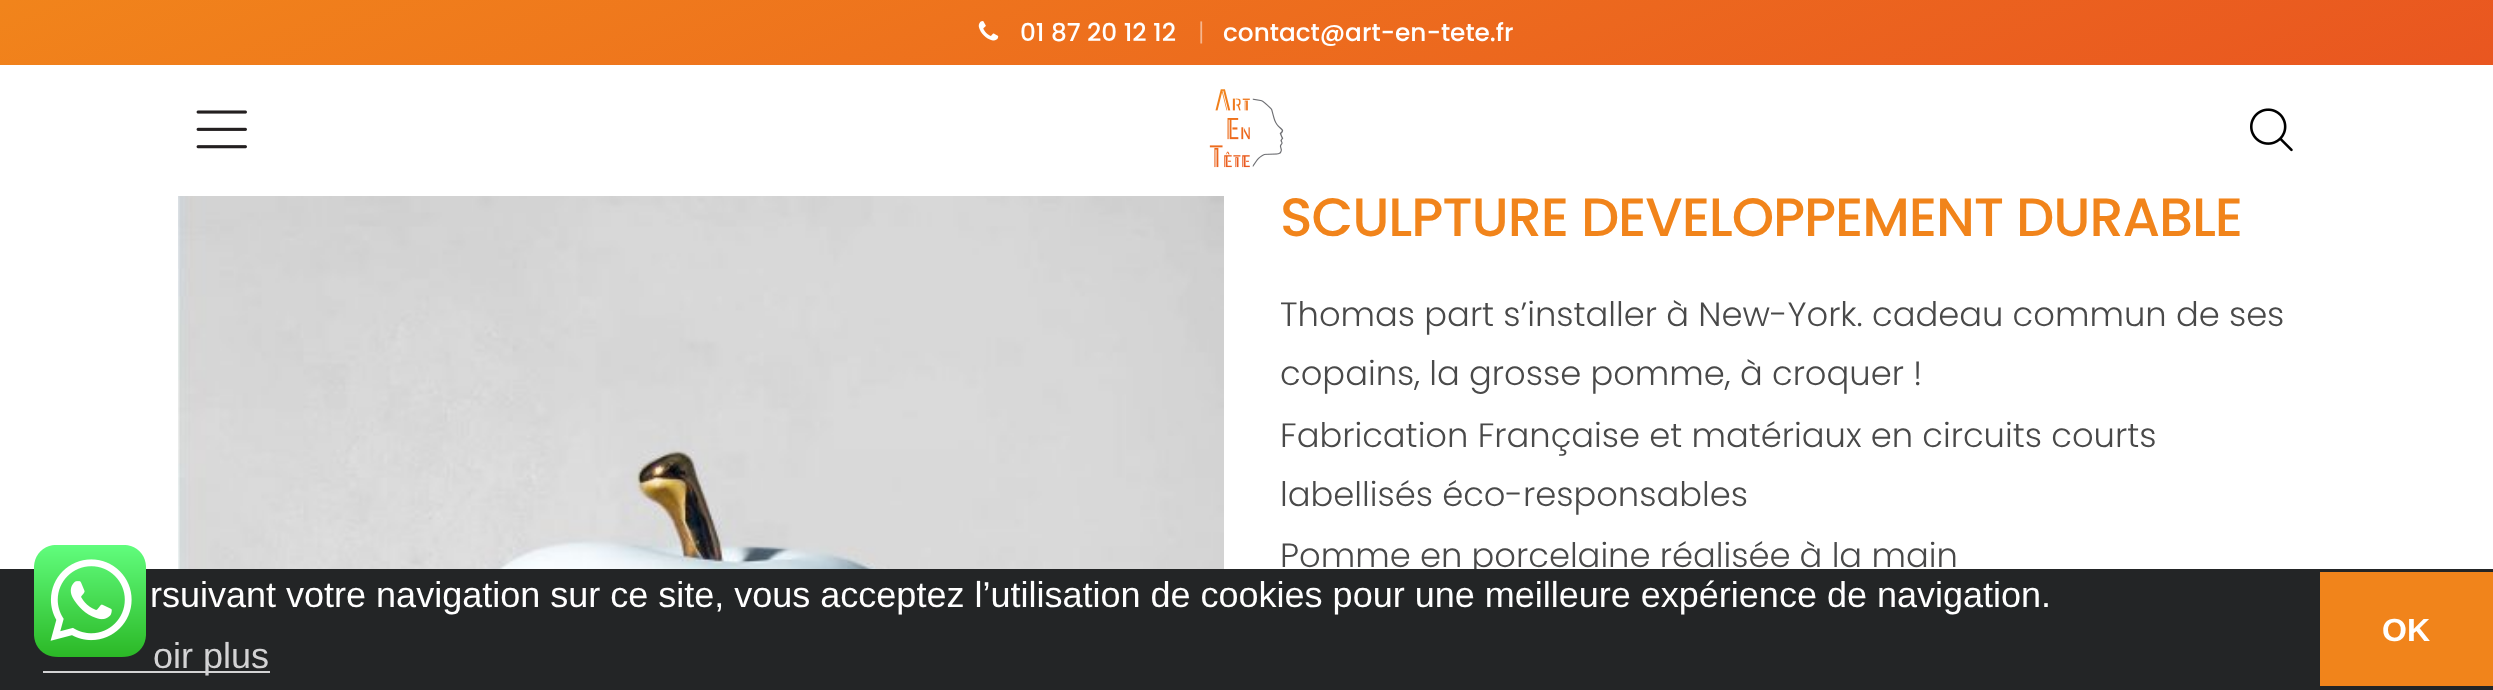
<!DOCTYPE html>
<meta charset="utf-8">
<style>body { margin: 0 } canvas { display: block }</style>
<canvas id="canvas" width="2493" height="690"></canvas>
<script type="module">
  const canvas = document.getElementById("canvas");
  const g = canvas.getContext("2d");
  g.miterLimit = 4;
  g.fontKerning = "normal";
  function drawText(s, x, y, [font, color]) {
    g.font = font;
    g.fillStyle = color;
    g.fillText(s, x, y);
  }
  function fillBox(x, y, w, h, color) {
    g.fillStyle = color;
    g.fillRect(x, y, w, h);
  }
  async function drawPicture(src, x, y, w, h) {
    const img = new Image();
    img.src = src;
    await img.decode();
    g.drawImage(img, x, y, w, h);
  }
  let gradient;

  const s1 = ["500 24.75px Poppins", "#FFFFFF"];
  const s2 = ["300 24.75px Poppins", "#F6B68E"];
  const s3 = ["500 54px Poppins", "#F1841B"];
  const s4 = ["300 33.75px Poppins", "#494949"];
  const s5 = ["36px Liberation Sans", "#FFFFFF"];
  const s6 = ["36px Liberation Sans", "#D3D3D4"];
  const s7 = ["bold 32px Liberation Sans", "#FFFFFF"];

  fillBox(0, 0, 2493, 690, "#FFFFFF");
  gradient = g.createLinearGradient(1449, 509, 1044, -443);
  gradient.addColorStop(0, "#E95620");
  gradient.addColorStop(1, "#F1841B");
  g.fillStyle = gradient;
  g.fillRect(0, 0, 2493, 65);
  await drawPicture("pic1.png", 978, 21, 21, 20);
  drawText("01 87 20 12 12", 1020, 41, s1);
  drawText("|", 1198, 41, s2);
  drawText("contact@art-en-tete.fr", 1223, 41, s1);
  g.letterSpacing = "-1.1px";
  drawText("SCULPTURE DÉVELOPPEMENT DURABLE", 1280, 236, s3);
  fillBox(1625, 185, 13, 11, "#FFFFFF");
  await drawPicture("pic2.png", 196, 110, 51, 39);
  await drawPicture("pic3.png", 1209, 89, 75, 79);
  await drawPicture("pic4.png", 2250, 108, 43, 44);
  await drawPicture("pic5.png", 178, 196, 1046, 373);
  g.letterSpacing = "0px";
  drawText("Thomas part s’installer à New-York. cadeau commun de ses", 1280, 326, s4);
  drawText("copains, la grosse pomme, à croquer !", 1280, 385, s4);
  drawText("Fabrication Française et matériaux en circuits courts", 1280, 447, s4);
  drawText("labellisés éco-responsables", 1280, 506, s4);
  drawText("Pomme en porcelaine réalisée à la main", 1280, 567, s4);
  fillBox(0, 569, 2493, 121, "#232526");
  await drawPicture("pic6.png", 34, 545, 112, 112);
  drawText("rsuivant votre navigation sur ce site, vous acceptez l’utilisation de cookies pour une meilleure expérience de navigation.", 150, 607, s5);
  fillBox(43, 671, 227, 2, "#D3D3D4");
  drawText("oir plus", 153, 668, s6);
  fillBox(2320, 572, 173, 114, "#F1841B");
  drawText("OK", 2382, 641, s7);
</script>
